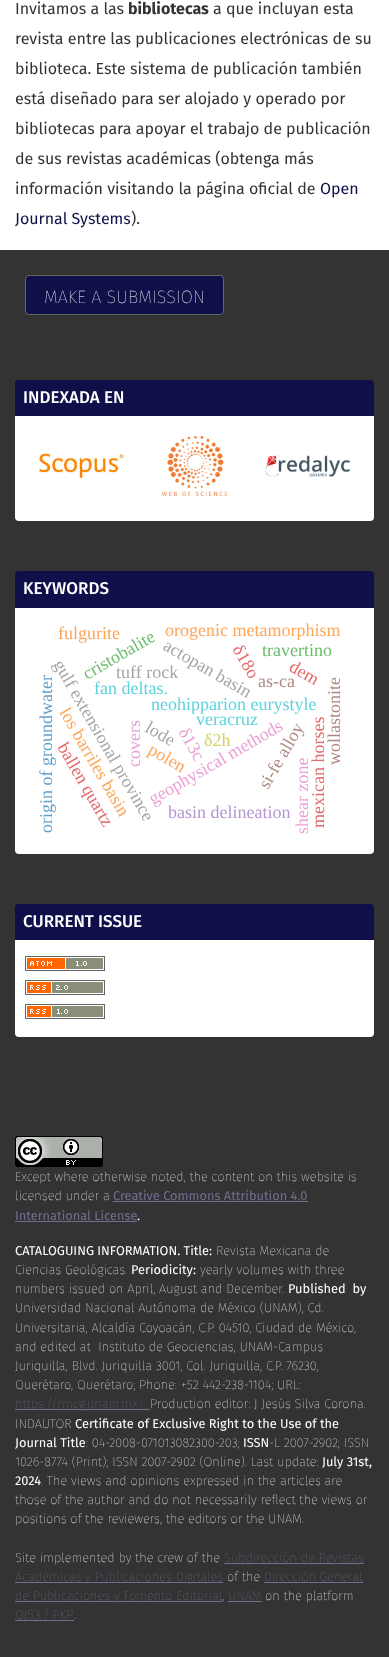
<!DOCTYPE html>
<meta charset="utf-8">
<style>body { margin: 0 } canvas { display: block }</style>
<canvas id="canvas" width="389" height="1657"></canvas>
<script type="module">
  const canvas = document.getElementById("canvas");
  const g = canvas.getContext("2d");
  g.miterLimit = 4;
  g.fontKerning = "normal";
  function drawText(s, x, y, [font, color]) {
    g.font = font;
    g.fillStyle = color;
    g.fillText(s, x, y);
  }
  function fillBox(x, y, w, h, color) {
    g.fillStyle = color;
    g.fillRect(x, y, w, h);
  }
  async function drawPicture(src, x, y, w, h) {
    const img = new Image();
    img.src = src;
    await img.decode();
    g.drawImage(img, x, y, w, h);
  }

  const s1 = ["16px Fira Sans", "#333333"];
  const s2 = ["bold 16px Fira Sans", "#333333"];
  const s3 = ["16px Fira Sans", "#0F104A"];
  const s4 = ["200 18px Fira Sans", "#FFFFFF"];
  const s5 = ["500 17px Fira Sans", "#FFFFFF"];
  const s6 = ["18px Liberation Serif", "#5DD2DD"];
  const s7 = ["18px Liberation Serif", "#A5A5A5"];
  const s8 = ["18px Liberation Serif", "#FFA556"];
  const s9 = ["18px Liberation Serif", "#6BBD6B"];
  const s10 = ["18px Liberation Serif", "#AF8981"];
  const s11 = ["18px Liberation Serif", "#D0D164"];
  const s12 = ["18px Liberation Serif", "#B495D1"];
  const s13 = ["200 12.8px Fira Sans", "#FFFFFF"];
  const s14 = ["12.8px Fira Sans", "#6F6F8F"];
  const s15 = ["12.8px Fira Sans", "#FFFFFF"];
  const s16 = ["200 12.8px Fira Sans", "#6F6F8F"];

  fillBox(0, 0, 389, 1657, "#FFFFFF");
  drawText("Invitamos a las", 15, 14, s1);
  drawText("bibliotecas", 128, 14, s2);
  drawText("a que incluyan esta", 213, 14, s1);
  drawText("revista entre las publicaciones electrónicas de su", 15, 44, s1);
  drawText("biblioteca. Este sistema de publicación también", 15, 74, s1);
  drawText("está diseñado para ser alojado y operado por", 15, 104, s1);
  drawText("bibliotecas para apoyar el trabajo de publicación", 15, 134, s1);
  drawText("de sus revistas académicas (obtenga más", 15, 164, s1);
  drawText("información visitando la página oficial de", 15, 194, s1);
  drawText("Open", 320, 194, s3);
  drawText("Journal Systems", 15, 224, s3);
  drawText(").", 131, 224, s1);
  fillBox(0, 250, 389, 1407, "#333333");
  g.fillStyle = "#0F104A";
  g.beginPath();
  g.roundRect(25.5, 275.5, 198, 39, 3.5);
  g.fill();
  g.strokeStyle = "#666666";
  g.stroke();
  drawText("MAKE A SUBMISSION", 44, 303, s4);
  g.fillStyle = "#0F104A";
  g.beginPath();
  g.roundRect(15, 380, 359, 36, [4, 4, 0, 0]);
  g.fill();
  drawText("INDEXADA EN", 23, 403, s5);
  g.beginPath();
  g.roundRect(15, 416, 359, 105, [0, 0, 4, 4]);
  g.fill();
  await drawPicture("pic1.png", 39, 453, 85, 26);
  await drawPicture("pic2.png", 161, 435, 67, 62);
  await drawPicture("pic3.png", 265, 455, 85, 22);
  g.fillStyle = "#0F104A";
  g.beginPath();
  g.roundRect(15, 571, 359, 37, [4, 4, 0, 0]);
  g.fill();
  drawText("KEYWORDS", 23, 594, s5);
  g.beginPath();
  g.roundRect(15, 608, 359, 246, [0, 0, 4, 4]);
  g.fill();
  g.font = "18px Liberation Serif";
  g.fillStyle = "#EBA0D4";
  g.save();
  g.translate(140, 767);
  g.rotate(-90 * Math.PI / 180);
  g.fillText("covers", 0, 0);
  g.restore();
  g.fillStyle = "#A5A5A5";
  g.save();
  g.translate(53, 664);
  g.rotate(60 * Math.PI / 180);
  g.fillText("gulf extensional province", 0, 0);
  g.restore();
  drawText("fan deltas.", 94, 694, s6);
  g.fillStyle = "#A5A5A5";
  g.save();
  g.translate(162, 649);
  g.rotate(30 * Math.PI / 180);
  g.fillText("actopan basin", 0, 0);
  g.restore();
  drawText("tuff rock", 116, 678, s7);
  g.fillStyle = "#6BBD6B";
  g.save();
  g.translate(87, 680);
  g.rotate(-30 * Math.PI / 180);
  g.fillText("cristobalite", 0, 0);
  g.restore();
  drawText("fulgurite", 58, 639, s8);
  drawText("orogenic metamorphism", 165, 636, s8);
  drawText("travertino", 262, 656, s9);
  g.fillStyle = "#E26869";
  g.save();
  g.translate(232, 649);
  g.rotate(60 * Math.PI / 180);
  g.fillText("δ18o", 0, 0);
  g.restore();
  drawText("as-ca", 258, 687, s10);
  g.fillStyle = "#E26869";
  g.save();
  g.translate(288, 670);
  g.rotate(30 * Math.PI / 180);
  g.fillText("dem", 0, 0);
  g.restore();
  g.fillStyle = "#62A0CB";
  g.save();
  g.translate(52, 833);
  g.rotate(-90 * Math.PI / 180);
  g.fillText("origin of groundwater", 0, 0);
  g.restore();
  g.fillStyle = "#AF8981";
  g.save();
  g.translate(340, 765);
  g.rotate(-90 * Math.PI / 180);
  g.fillText("wollastonite", 0, 0);
  g.restore();
  g.fillStyle = "#FFA556";
  g.save();
  g.translate(59, 712);
  g.rotate(60 * Math.PI / 180);
  g.fillText("los barriles basin", 0, 0);
  g.restore();
  drawText("neohipparion eurystyle", 151, 710, s6);
  g.fillStyle = "#EBA0D4";
  g.save();
  g.translate(153, 805);
  g.rotate(-30 * Math.PI / 180);
  g.fillText("geophysical methods", 0, 0);
  g.restore();
  g.fillStyle = "#A5A5A5";
  g.save();
  g.translate(144, 731);
  g.rotate(30 * Math.PI / 180);
  g.fillText("lode", 0, 0);
  g.restore();
  drawText("veracruz", 196, 725, s6);
  g.fillStyle = "#E26869";
  g.save();
  g.translate(324, 828);
  g.rotate(-90 * Math.PI / 180);
  g.fillText("mexican horses", 0, 0);
  g.restore();
  g.save();
  g.translate(57, 747);
  g.rotate(60 * Math.PI / 180);
  g.fillText("ballen quartz", 0, 0);
  g.restore();
  g.fillStyle = "#FFA556";
  g.save();
  g.translate(147, 753);
  g.rotate(30 * Math.PI / 180);
  g.fillText("polen", 0, 0);
  g.restore();
  g.fillStyle = "#EBA0D4";
  g.save();
  g.translate(178, 732);
  g.rotate(60 * Math.PI / 180);
  g.fillText("δ13c", 0, 0);
  g.restore();
  drawText("δ2h", 204, 746, s11);
  g.fillStyle = "#AF8981";
  g.save();
  g.translate(268, 790);
  g.rotate(-60 * Math.PI / 180);
  g.fillText("si-fe alloy", 0, 0);
  g.restore();
  drawText("basin delineation", 168, 818, s12);
  g.fillStyle = "#EBA0D4";
  g.save();
  g.translate(308, 834);
  g.rotate(-90 * Math.PI / 180);
  g.fillText("shear zone", 0, 0);
  g.restore();
  g.fillStyle = "#0F104A";
  g.beginPath();
  g.roundRect(15, 904, 359, 36, [4, 4, 0, 0]);
  g.fill();
  drawText("CURRENT ISSUE", 23, 927, s5);
  g.beginPath();
  g.roundRect(15, 940, 359, 97, [0, 0, 4, 4]);
  g.fill();
  await drawPicture("pic4.png", 25, 956, 80, 15);
  await drawPicture("pic5.png", 25, 980, 80, 15);
  await drawPicture("pic6.png", 25, 1004, 80, 15);
  await drawPicture("pic7.png", 15, 1136, 88, 31);
  drawText("Except where otherwise noted, the content on this website is", 15, 1181, s13);
  drawText("licensed under a", 15, 1200, s13);
  drawText("Creative Commons Attribution 4.0", 113, 1200, s14);
  fillBox(113, 1201, 195, 1, "#6F6F8F");
  drawText("International License", 15, 1220, s14);
  drawText(".", 137, 1220, s15);
  fillBox(15, 1221, 122, 1, "#6F6F8F");
  drawText("CATALOGUING INFORMATION. Title:", 15, 1255, s15);
  drawText("Revista Mexicana de", 216, 1255, s13);
  drawText("Ciencias Geológicas.", 15, 1274, s13);
  drawText("Periodicity:", 131, 1274, s15);
  drawText("yearly volumes with three", 200, 1274, s13);
  drawText("numbers issued on April, August and December.", 15, 1293, s13);
  drawText("Published  by", 288, 1293, s15);
  drawText("Universidad Nacional Autónoma de México (UNAM), Cd.", 15, 1312, s13);
  drawText("Universitaria, Alcaldía Coyoacán, C.P. 04510, Ciudad de México,", 15, 1332, s13);
  drawText("and edited at  Instituto de Geociencias, UNAM-Campus", 15, 1351, s13);
  drawText("Juriquilla, Blvd. Juriquilla 3001, Col. Juriquilla, C.P. 76230,", 15, 1370, s13);
  drawText("Querétaro, Querétaro; Phone: +52 442-238-1104; URL:", 15, 1389, s13);
  fillBox(15, 1409, 135, 1, "#6F6F8F");
  drawText("https://rmcg.unam.mx/;", 15, 1408, s16);
  drawText("Production editor: J Jesús Silva Corona.", 150, 1408, s13);
  drawText("INDAUTOR", 15, 1428, s13);
  drawText("Certificate of Exclusive Right to the Use of the", 75, 1428, s15);
  drawText("Journal Title", 15, 1447, s15);
  drawText(": 04-2008-071013082300-203;", 86, 1447, s13);
  drawText("ISSN", 243, 1447, s15);
  drawText("-L 2007-2902; ISSN", 269, 1447, s13);
  drawText("1026-8774 (Print); ISSN 2007-2902 (Online). Last update:", 15, 1466, s13);
  drawText("July 31st,", 322, 1466, s15);
  drawText("2024", 15, 1485, s15);
  drawText(". The views and opinions expressed in the articles are", 41, 1485, s13);
  drawText("those of the author and do not necessarily reflect the views or", 15, 1504, s13);
  drawText("positions of the reviewers, the editors or the UNAM.", 15, 1523, s13);
  drawText("Site implemented by the crew of the", 15, 1562, s13);
  drawText("Subdirección de Revistas", 224, 1562, s16);
  fillBox(224, 1563, 140, 1, "#6F6F8F");
  fillBox(15, 1582, 208, 1, "#6F6F8F");
  drawText("Académicas y Publicaciones Digitales", 15, 1581, s16);
  drawText("of the", 227, 1581, s13);
  drawText("Dirección General", 264, 1581, s16);
  fillBox(264, 1582, 99, 1, "#6F6F8F");
  fillBox(15, 1601, 207, 1, "#6F6F8F");
  drawText("de Publicaciones y Fomento Editorial", 15, 1600, s16);
  drawText(",", 222, 1600, s13);
  drawText("UNAM", 228, 1600, s16);
  fillBox(228, 1601, 34, 1, "#6F6F8F");
  drawText("on the platform", 265, 1600, s13);
  fillBox(15, 1620, 59, 1, "#6F6F8F");
  g.wordSpacing = "-1px";
  drawText("OJS3 / PKP", 15, 1619, s16);
  g.wordSpacing = "0px";
  drawText(".", 74, 1619, s13);
</script>
